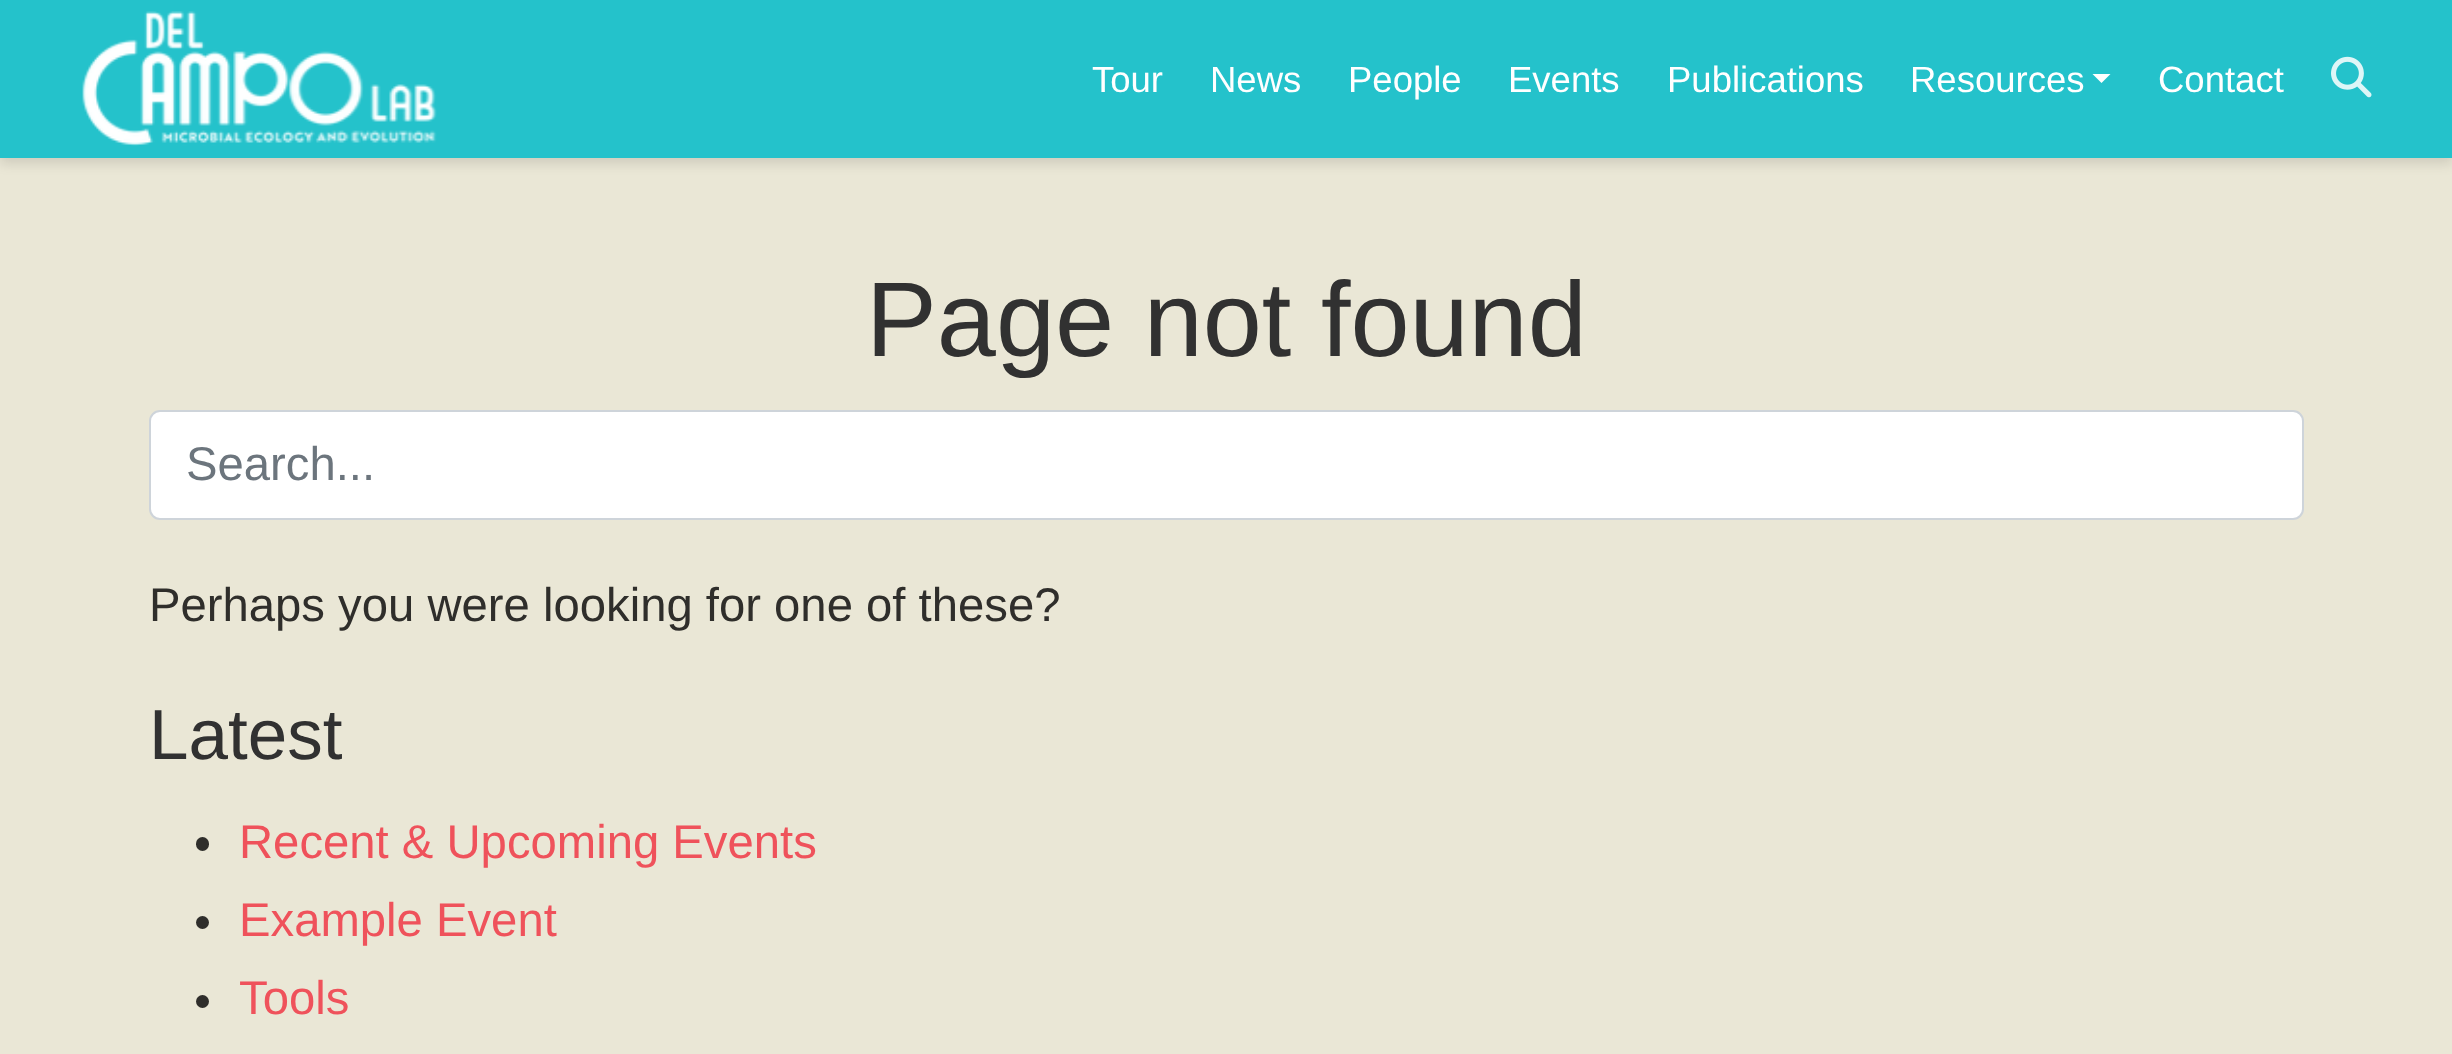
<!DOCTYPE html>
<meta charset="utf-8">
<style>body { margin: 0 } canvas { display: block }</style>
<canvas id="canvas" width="2452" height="1054"></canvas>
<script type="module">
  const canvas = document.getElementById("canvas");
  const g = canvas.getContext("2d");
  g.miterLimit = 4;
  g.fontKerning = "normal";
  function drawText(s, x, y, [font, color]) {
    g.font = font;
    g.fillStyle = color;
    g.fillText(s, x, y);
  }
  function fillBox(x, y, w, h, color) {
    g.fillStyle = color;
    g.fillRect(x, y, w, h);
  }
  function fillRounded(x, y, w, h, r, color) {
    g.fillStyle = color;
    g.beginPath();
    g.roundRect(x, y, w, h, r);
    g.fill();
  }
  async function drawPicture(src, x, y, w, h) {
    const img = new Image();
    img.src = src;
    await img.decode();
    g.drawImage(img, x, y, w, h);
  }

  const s1 = ["36.5px Liberation Sans", "#FFFFFF"];
  const s2 = ["106.25px Liberation Sans", "#313131"];
  const s3 = ["47.25px Liberation Sans", "#6C757D"];
  const s4 = ["47.25px Liberation Sans", "#2F2E2B"];
  const s5 = ["71px Liberation Sans", "#313131"];
  const s6 = ["47.25px Liberation Sans", "#EF525B"];

  fillBox(0, 0, 2452, 1054, "#EAE7D6");
  g.fillStyle = "rgba(0, 0, 0, 0.11)";
  g.filter = "blur(6px)";
  g.beginPath();
  g.rect(0, 7, 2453, 157);
  g.fill();
  g.filter = "none";
  fillBox(0, 0, 2452, 158, "#24C2CB");
  await drawPicture("pic1.png", 82, 11, 355, 135);
  drawText("Tour", 1092, 92, s1);
  drawText("News", 1210, 92, s1);
  drawText("People", 1348, 92, s1);
  drawText("Events", 1508, 92, s1);
  drawText("Publications", 1667, 92, s1);
  drawText("Resources", 1910, 92, s1);
  g.beginPath();
  g.moveTo(2092.5, 74);
  g.lineTo(2110.5, 74);
  g.lineTo(2101.5, 83);
  g.closePath();
  g.fill();
  drawText("Contact", 2158, 92, s1);
  await drawPicture("pic2.png", 2331, 56, 41, 42);
  drawText("Page not found", 866, 356, s2);
  g.fillStyle = "#FFFFFF";
  g.beginPath();
  g.roundRect(150, 411, 2153, 108, 10);
  g.fill();
  g.strokeStyle = "#CED4DA";
  g.lineWidth = 2;
  g.stroke();
  drawText("Search...", 186, 480, s3);
  drawText("Perhaps you were looking for one of these?", 149, 621, s4);
  drawText("Latest", 149, 759, s5);
  fillRounded(196, 837, 13, 14, 6.5, "#2F2E2B");
  drawText("Recent & Upcoming Events", 239, 858, s6);
  g.fillStyle = "#2F2E2B";
  g.beginPath();
  g.arc(202.5, 922.5, 6.5, 0, Math.PI * 2);
  g.fill();
  drawText("Example Event", 239, 936, s6);
  g.fillStyle = "#2F2E2B";
  g.beginPath();
  g.arc(202.5, 1001.5, 6.5, 0, Math.PI * 2);
  g.fill();
  drawText("Tools", 239, 1014, s6);
</script>
